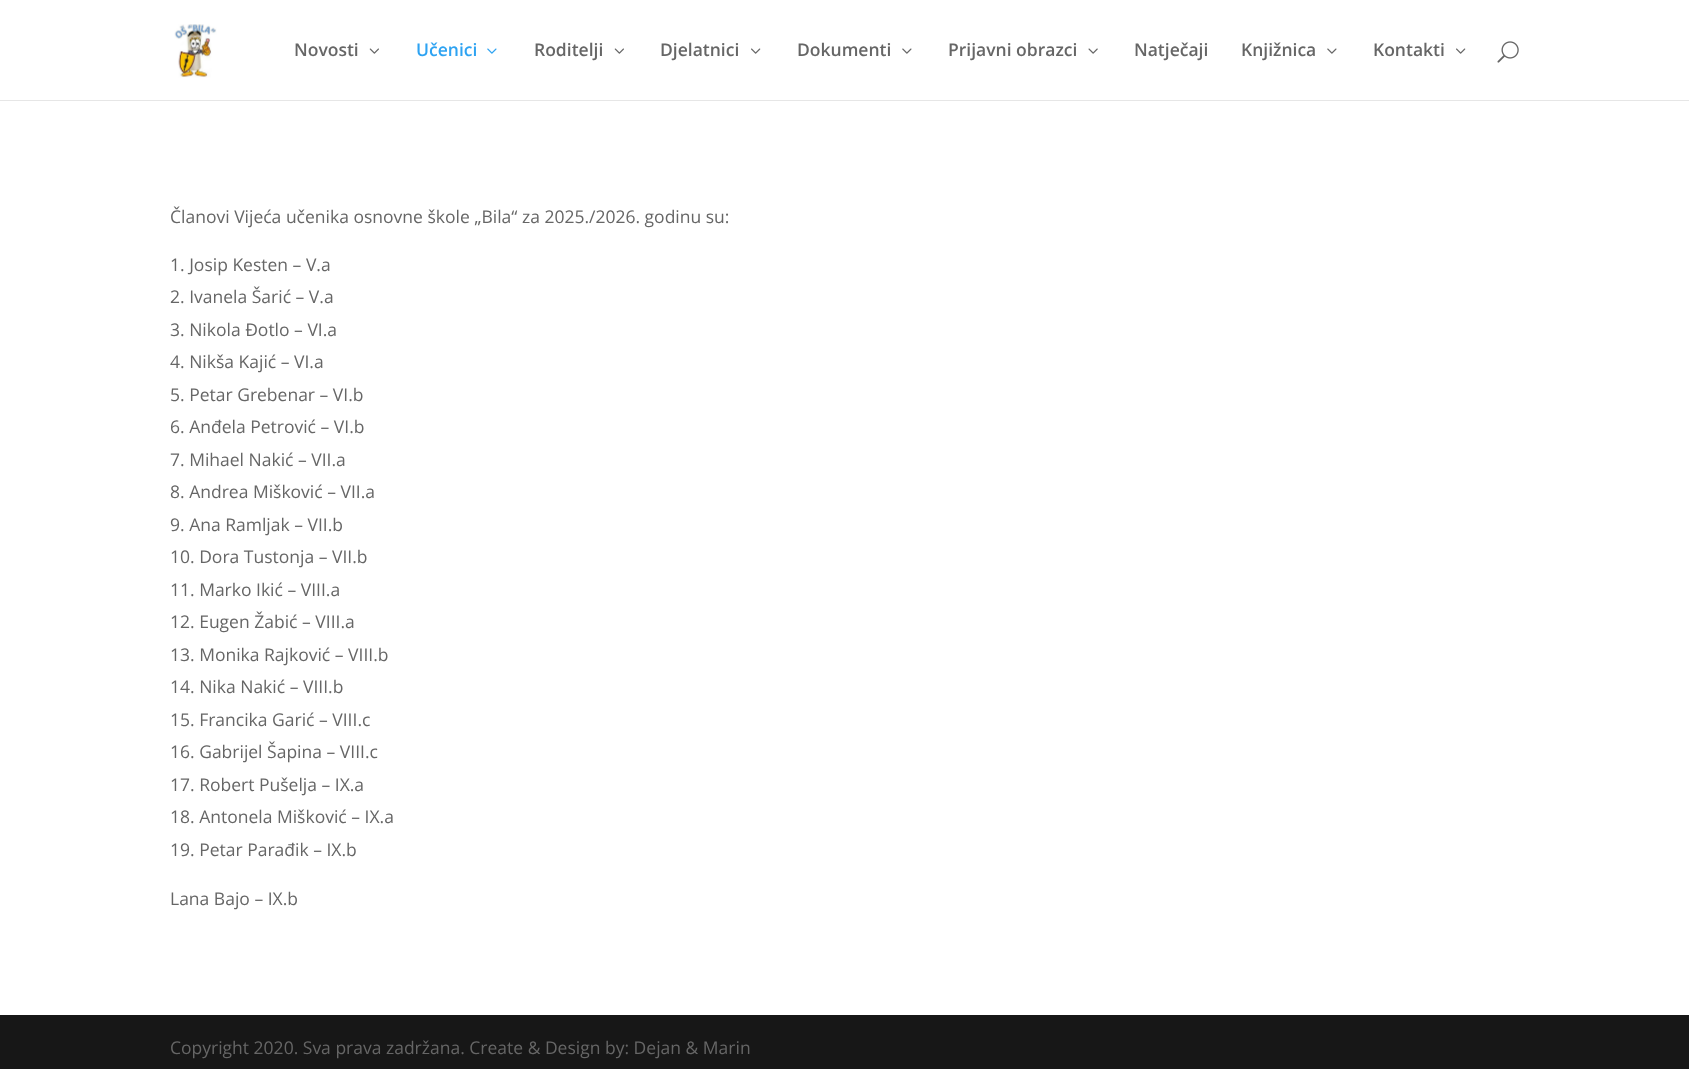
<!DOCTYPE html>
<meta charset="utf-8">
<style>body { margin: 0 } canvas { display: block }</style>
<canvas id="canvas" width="1689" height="1069"></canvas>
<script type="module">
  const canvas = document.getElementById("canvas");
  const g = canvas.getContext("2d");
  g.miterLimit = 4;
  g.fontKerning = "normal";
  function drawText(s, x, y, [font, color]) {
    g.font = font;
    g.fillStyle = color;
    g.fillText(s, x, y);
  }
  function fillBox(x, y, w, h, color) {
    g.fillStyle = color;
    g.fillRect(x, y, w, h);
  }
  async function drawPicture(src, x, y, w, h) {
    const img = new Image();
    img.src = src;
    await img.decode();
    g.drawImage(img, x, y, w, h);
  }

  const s1 = ["600 17.5px Open Sans", "#666666"];
  const s2 = ["600 17.5px Open Sans", "#2EA3F2"];
  const s3 = ["17.5px Open Sans", "#666666"];

  fillBox(0, 0, 1689, 1069, "#FFFFFF");
  fillBox(0, 100, 1689, 1, "#E6E6E6");
  await drawPicture("pic1.png", 174, 24, 43, 54);
  drawText("Novosti", 294, 56, s1);
  await drawPicture("pic2.png", 369, 48, 10, 6);
  drawText("Učenici", 416, 56, s2);
  await drawPicture("pic3.png", 487, 48, 10, 6);
  drawText("Roditelji", 534, 56, s1);
  await drawPicture("pic2.png", 614, 48, 10, 6);
  drawText("Djelatnici", 660, 56, s1);
  await drawPicture("pic4.png", 751, 48, 10, 6);
  drawText("Dokumenti", 797, 56, s1);
  await drawPicture("pic5.png", 902, 48, 10, 6);
  drawText("Prijavni obrazci", 948, 56, s1);
  await drawPicture("pic6.png", 1088, 48, 10, 6);
  drawText("Natječaji", 1134, 56, s1);
  drawText("Knjižnica", 1241, 56, s1);
  await drawPicture("pic5.png", 1327, 48, 10, 6);
  drawText("Kontakti", 1373, 56, s1);
  await drawPicture("pic4.png", 1456, 48, 10, 6);
  await drawPicture("pic7.png", 1497, 41, 22, 22);
  drawText("Članovi Vijeća učenika osnovne škole „Bila“ za 2025./2026. godinu su:", 170, 223, s3);
  drawText("1. Josip Kesten – V.a", 170, 271, s3);
  drawText("2. Ivanela Šarić – V.a", 170, 303, s3);
  drawText("3. Nikola Đotlo – VI.a", 170, 336, s3);
  drawText("4. Nikša Kajić – VI.a", 170, 368, s3);
  drawText("5. Petar Grebenar – VI.b", 170, 401, s3);
  drawText("6. Anđela Petrović – VI.b", 170, 433, s3);
  drawText("7. Mihael Nakić – VII.a", 170, 466, s3);
  drawText("8. Andrea Mišković – VII.a", 170, 498, s3);
  drawText("9. Ana Ramljak – VII.b", 170, 531, s3);
  drawText("10. Dora Tustonja – VII.b", 170, 563, s3);
  drawText("11. Marko Ikić – VIII.a", 170, 596, s3);
  drawText("12. Eugen Žabić – VIII.a", 170, 628, s3);
  drawText("13. Monika Rajković – VIII.b", 170, 661, s3);
  drawText("14. Nika Nakić – VIII.b", 170, 693, s3);
  drawText("15. Francika Garić – VIII.c", 170, 726, s3);
  drawText("16. Gabrijel Šapina – VIII.c", 170, 758, s3);
  drawText("17. Robert Pušelja – IX.a", 170, 791, s3);
  drawText("18. Antonela Mišković – IX.a", 170, 823, s3);
  drawText("19. Petar Parađik – IX.b", 170, 856, s3);
  drawText("Lana Bajo – IX.b", 170, 905, s3);
  fillBox(0, 1015, 1689, 54, "#171717");
  drawText("Copyright 2020. Sva prava zadržana. Create & Design by: Dejan & Marin", 170, 1054, s3);
</script>
